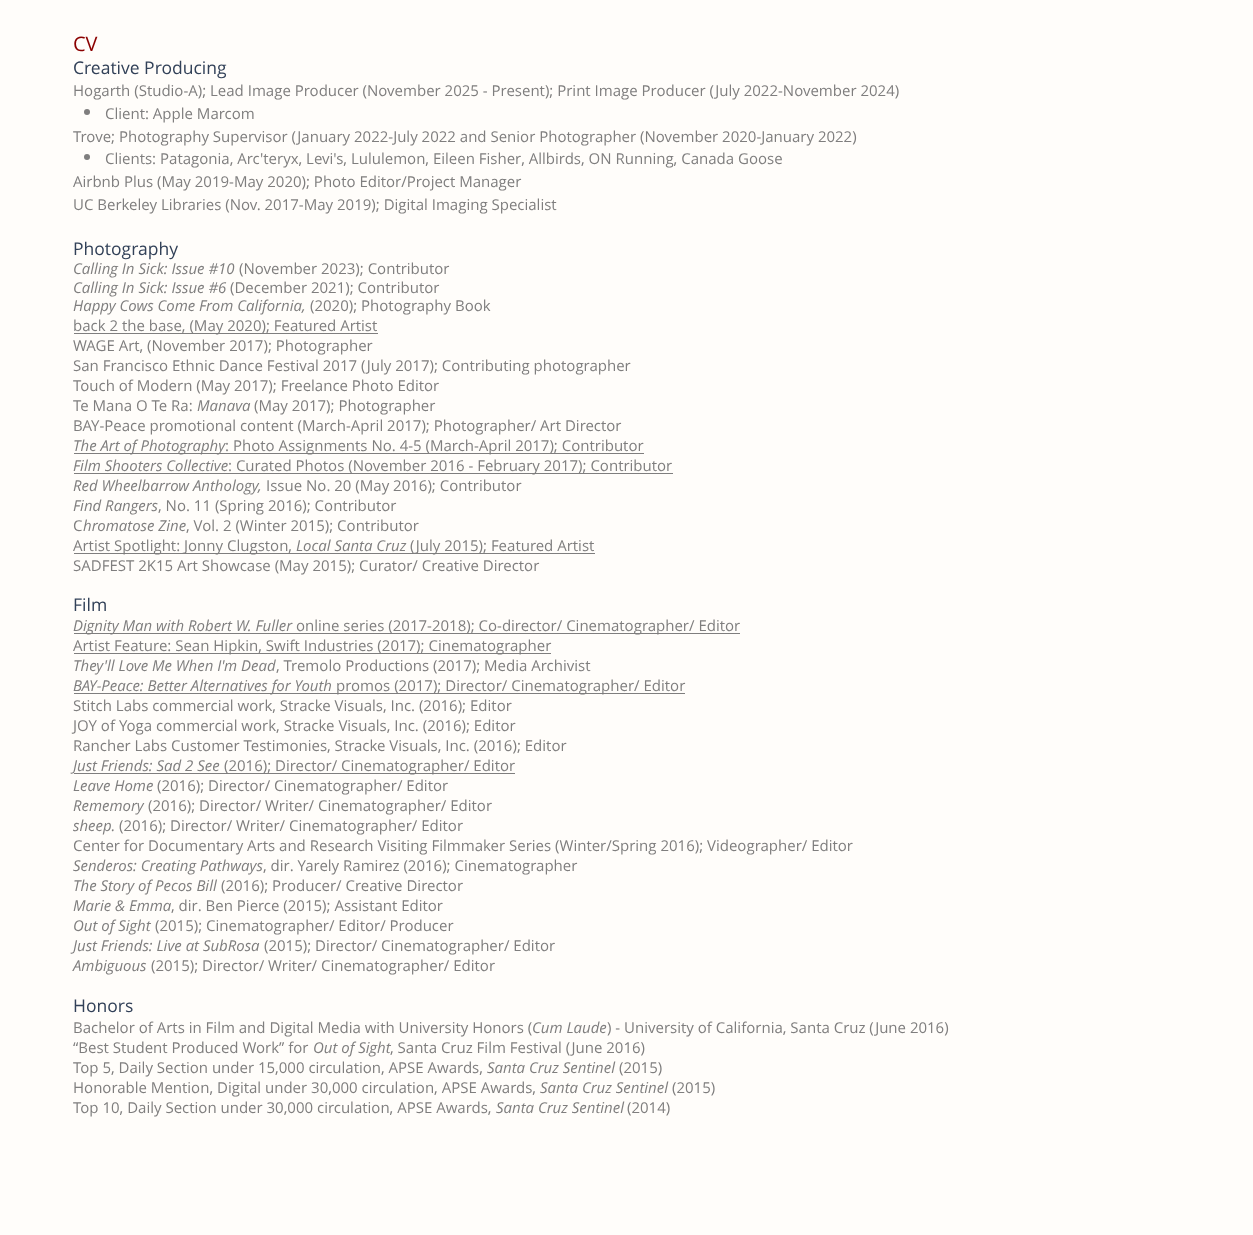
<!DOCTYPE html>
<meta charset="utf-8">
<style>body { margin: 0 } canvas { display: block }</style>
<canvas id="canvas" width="1253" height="1235"></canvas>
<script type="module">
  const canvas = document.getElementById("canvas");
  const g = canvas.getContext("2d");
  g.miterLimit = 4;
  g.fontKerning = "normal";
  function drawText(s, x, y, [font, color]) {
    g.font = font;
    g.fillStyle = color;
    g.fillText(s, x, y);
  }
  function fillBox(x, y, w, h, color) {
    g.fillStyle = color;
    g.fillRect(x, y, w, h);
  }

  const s1 = ["20px Open Sans", "#8B0000"];
  const s2 = ["17.5px Open Sans", "#324158"];
  const s3 = ["15px Open Sans", "#7F7E7E"];
  const s4 = ["italic 15px Open Sans", "#7F7E7E"];

  fillBox(0, 0, 1253, 1235, "#FFFDFA");
  drawText("CV", 73, 51, s1);
  drawText("Creative Producing", 73, 74, s2);
  drawText("Hogarth (Studio-A); Lead Image Producer (November 2025 - Present); Print Image Producer (July 2022-November 2024)", 73, 96, s3);
  g.beginPath();
  g.arc(87, 112, 3, 0, Math.PI * 2);
  g.fill();
  drawText("Client: Apple Marcom", 105, 119, s3);
  drawText("Trove; Photography Supervisor (January 2022-July 2022 and Senior Photographer (November 2020-January 2022)", 73, 142, s3);
  g.beginPath();
  g.arc(87, 157, 3, 0, Math.PI * 2);
  g.fill();
  drawText("Clients: Patagonia, Arc'teryx, Levi's, Lululemon, Eileen Fisher, Allbirds, ON Running, Canada Goose", 105, 164, s3);
  drawText("Airbnb Plus (May 2019-May 2020); Photo Editor/Project Manager", 73, 187, s3);
  drawText("UC Berkeley Libraries (Nov. 2017-May 2019); Digital Imaging Specialist", 73, 210, s3);
  drawText("Photography", 73, 255, s2);
  drawText("Calling In Sick: Issue #10", 73, 274, s4);
  drawText("(November 2023); Contributor", 239, 274, s3);
  drawText("Calling In Sick: Issue #6", 73, 293, s4);
  drawText("(December 2021); Contributor", 230, 293, s3);
  drawText("Happy Cows Come From California,", 73, 311, s4);
  drawText("(2020); Photography Book", 310, 311, s3);
  fillBox(74, 333, 304, 1, "#7F7E7E");
  drawText("back 2 the base, (May 2020); Featured Artist", 73, 331, s3);
  drawText("WAGE Art, (November 2017); Photographer", 73, 351, s3);
  drawText("San Francisco Ethnic Dance Festival 2017 (July 2017); Contributing photographer", 73, 371, s3);
  drawText("Touch of Modern (May 2017); Freelance Photo Editor", 73, 391, s3);
  drawText("Te Mana O Te Ra:", 73, 411, s3);
  drawText("Manava", 197, 411, s4);
  drawText("(May 2017); Photographer", 254, 411, s3);
  drawText("BAY-Peace promotional content (March-April 2017); Photographer/ Art Director", 73, 431, s3);
  fillBox(74, 453, 151, 1, "#7F7E7E");
  drawText("The Art of Photography", 73, 451, s4);
  fillBox(225, 453, 419, 1, "#7F7E7E");
  drawText(": Photo Assignments No. 4-5 (March-April 2017); Contributor", 225, 451, s3);
  drawText("Film Shooters Collective", 73, 471, s4);
  fillBox(74, 473, 599, 1, "#7F7E7E");
  drawText(": Curated Photos (November 2016 - February 2017); Contributor", 228, 471, s3);
  drawText("Red Wheelbarrow Anthology,", 73, 491, s4);
  drawText("Issue No. 20 (May 2016); Contributor", 266, 491, s3);
  drawText("Find Rangers", 73, 511, s4);
  drawText(", No. 11 (Spring 2016); Contributor", 158, 511, s3);
  drawText("C", 73, 531, s3);
  drawText("hromatose Zine", 83, 531, s4);
  drawText(", Vol. 2 (Winter 2015); Contributor", 186, 531, s3);
  fillBox(74, 553, 521, 1, "#7F7E7E");
  drawText("Artist Spotlight: Jonny Clugston,", 73, 551, s3);
  drawText("Local Santa Cruz", 296, 551, s4);
  drawText("(July 2015); Featured Artist", 410, 551, s3);
  drawText("SADFEST 2K15 Art Showcase (May 2015); Curator/ Creative Director", 73, 571, s3);
  drawText("Film", 73, 611, s2);
  fillBox(74, 633, 666, 1, "#7F7E7E");
  drawText("Dignity Man with Robert W. Fuller", 73, 631, s4);
  drawText("online series (2017-2018); Co-director/ Cinematographer/ Editor", 296, 631, s3);
  fillBox(74, 653, 477, 1, "#7F7E7E");
  drawText("Artist Feature: Sean Hipkin, Swift Industries (2017); Cinematographer", 73, 651, s3);
  drawText("They'll Love Me When I'm Dead", 73, 671, s4);
  drawText(", Tremolo Productions (2017); Media Archivist", 276, 671, s3);
  fillBox(74, 693, 611, 1, "#7F7E7E");
  drawText("BAY-Peace: Better Alternatives for Youth", 73, 691, s4);
  drawText("promos (2017); Director/ Cinematographer/ Editor", 336, 691, s3);
  drawText("Stitch Labs commercial work, Stracke Visuals, Inc. (2016); Editor", 73, 711, s3);
  drawText("JOY of Yoga commercial work, Stracke Visuals, Inc. (2016); Editor", 73, 731, s3);
  drawText("Rancher Labs Customer Testimonies, Stracke Visuals, Inc. (2016); Editor", 73, 751, s3);
  fillBox(74, 773, 441, 1, "#7F7E7E");
  drawText("Just Friends: Sad 2 See", 73, 771, s4);
  drawText("(2016); Director/ Cinematographer/ Editor", 224, 771, s3);
  drawText("Leave Home", 73, 791, s4);
  drawText("(2016); Director/ Cinematographer/ Editor", 157, 791, s3);
  drawText("Rememory", 73, 811, s4);
  drawText("(2016); Director/ Writer/ Cinematographer/ Editor", 148, 811, s3);
  drawText("sheep.", 73, 831, s4);
  drawText("(2016); Director/ Writer/ Cinematographer/ Editor", 119, 831, s3);
  drawText("Center for Documentary Arts and Research Visiting Filmmaker Series (Winter/Spring 2016); Videographer/ Editor", 73, 851, s3);
  drawText("Senderos: Creating Pathways", 73, 871, s4);
  drawText(", dir. Yarely Ramirez (2016); Cinematographer", 263, 871, s3);
  drawText("The Story of Pecos Bill", 73, 891, s4);
  drawText("(2016); Producer/ Creative Director", 221, 891, s3);
  drawText("Marie & Emma", 73, 911, s4);
  drawText(", dir. Ben Pierce (2015); Assistant Editor", 171, 911, s3);
  drawText("Out of Sight", 73, 931, s4);
  drawText("(2015); Cinematographer/ Editor/ Producer", 155, 931, s3);
  drawText("Just Friends: Live at SubRosa", 73, 951, s4);
  drawText("(2015); Director/ Cinematographer/ Editor", 264, 951, s3);
  drawText("Ambiguous", 73, 971, s4);
  drawText("(2015); Director/ Writer/ Cinematographer/ Editor", 151, 971, s3);
  drawText("Honors", 73, 1012, s2);
  drawText("Bachelor of Arts in Film and Digital Media with University Honors (", 73, 1033, s3);
  drawText("Cum Laude", 532, 1033, s4);
  drawText(") - University of California, Santa Cruz (June 2016)", 607, 1033, s3);
  drawText("“Best Student Produced Work” for", 73, 1053, s3);
  drawText("Out of Sight", 313, 1053, s4);
  drawText(", Santa Cruz Film Festival (June 2016)", 390, 1053, s3);
  drawText("Top 5, Daily Section under 15,000 circulation, APSE Awards,", 73, 1073, s3);
  drawText("Santa Cruz Sentinel", 487, 1073, s4);
  drawText("(2015)", 619, 1073, s3);
  drawText("Honorable Mention, Digital under 30,000 circulation, APSE Awards,", 73, 1093, s3);
  drawText("Santa Cruz Sentinel", 540, 1093, s4);
  drawText("(2015)", 672, 1093, s3);
  drawText("Top 10, Daily Section under 30,000 circulation, APSE Awards,", 73, 1113, s3);
  drawText("Santa Cruz Sentinel", 496, 1113, s4);
  drawText("(2014)", 627, 1113, s3);
</script>
